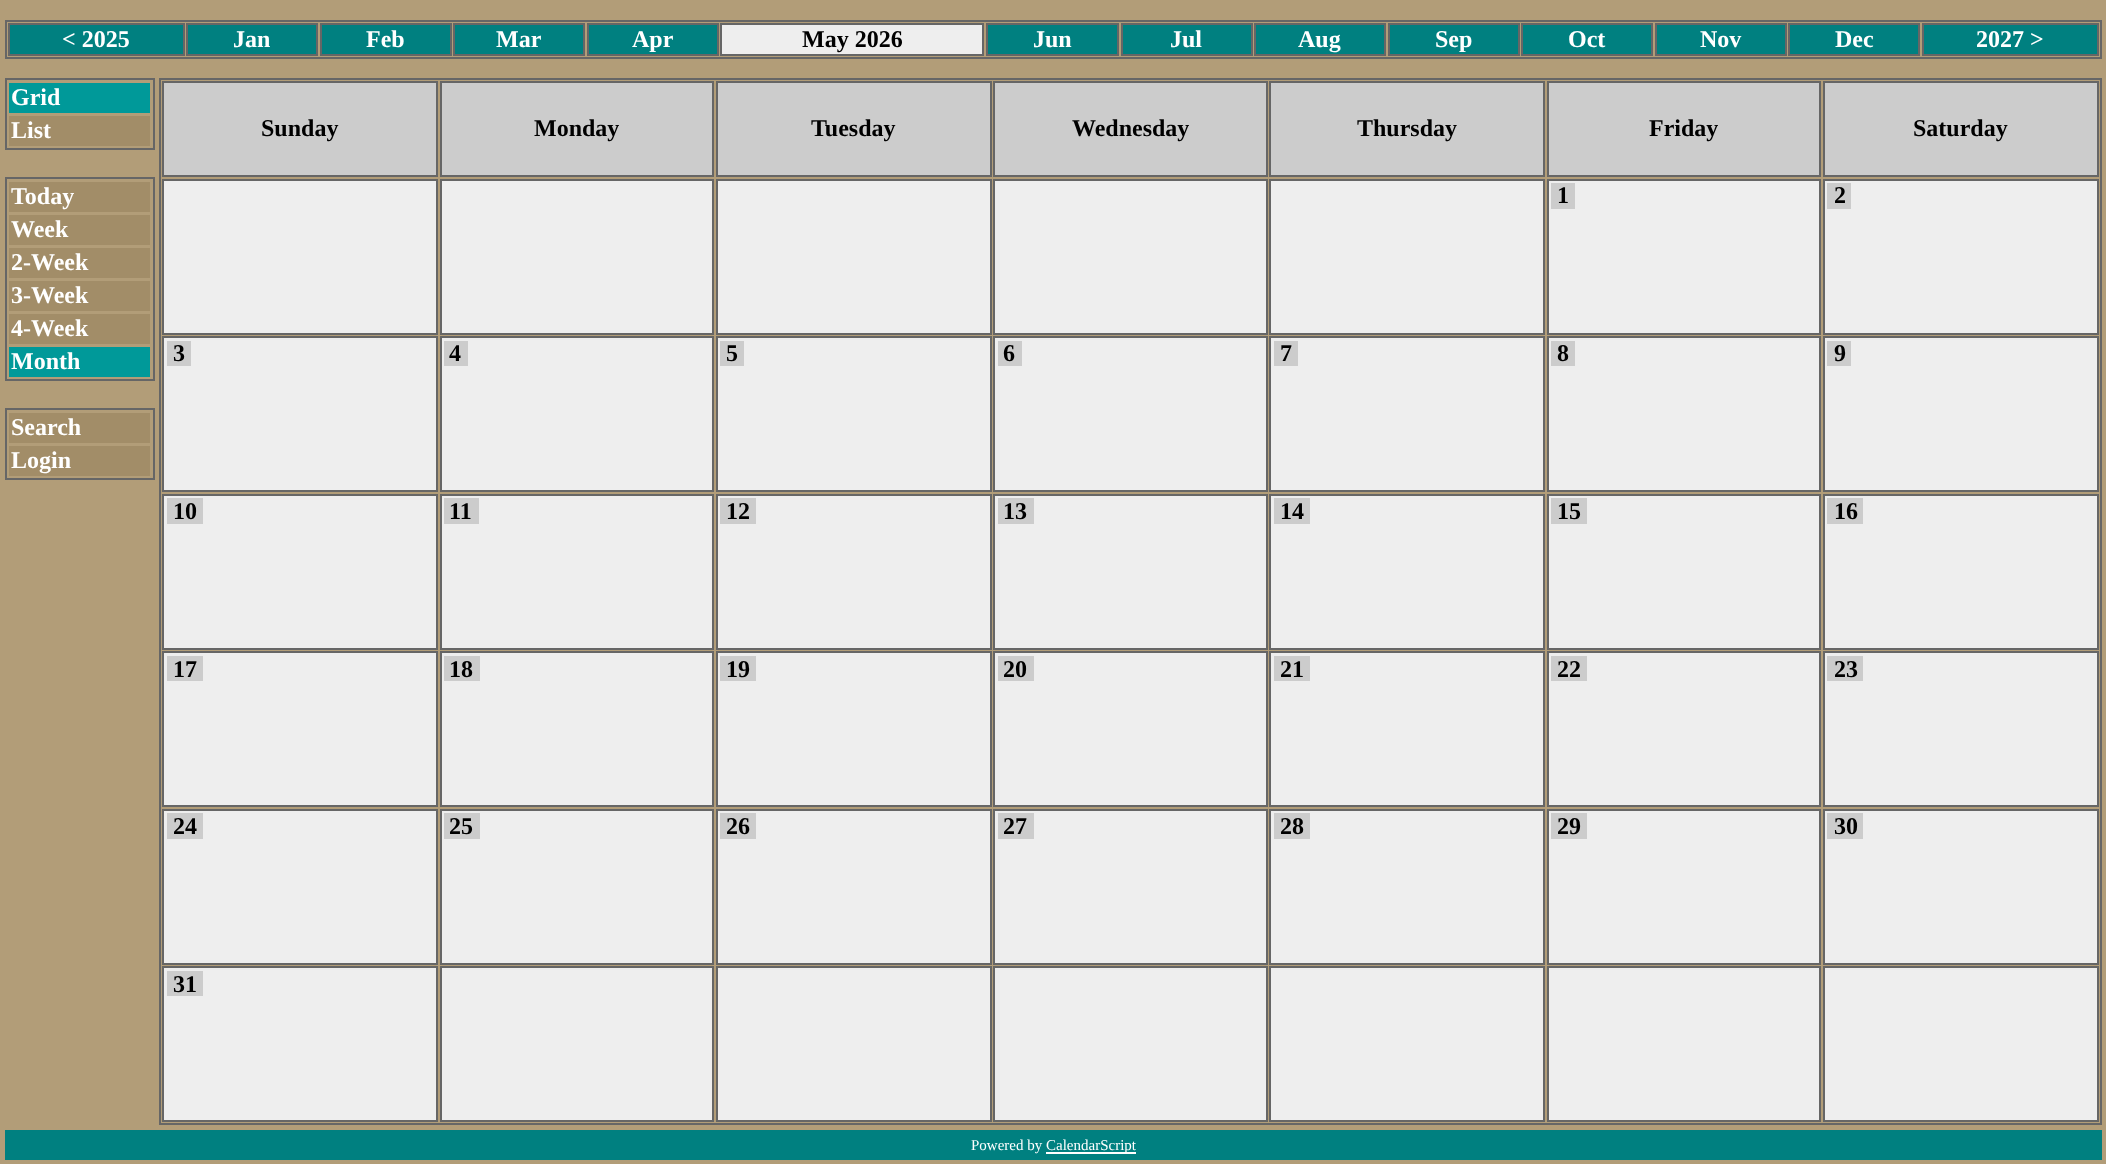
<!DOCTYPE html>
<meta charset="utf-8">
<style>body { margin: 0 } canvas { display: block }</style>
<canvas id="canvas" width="2106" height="1164"></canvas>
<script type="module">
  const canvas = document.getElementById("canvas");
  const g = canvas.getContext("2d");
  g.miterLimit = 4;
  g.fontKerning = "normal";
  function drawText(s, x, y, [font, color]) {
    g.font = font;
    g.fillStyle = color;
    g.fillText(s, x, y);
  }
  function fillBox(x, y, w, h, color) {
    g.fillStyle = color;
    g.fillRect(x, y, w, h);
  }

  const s1 = ["bold 24px Liberation Serif", "#FFFFFF"];
  const s2 = ["bold 24px Liberation Serif", "#000000"];
  const s3 = ["15px Liberation Serif", "#FFFFFF"];

  fillBox(0, 0, 2106, 1164, "#B29D78");
  g.strokeStyle = "#666666";
  g.lineWidth = 2;
  g.strokeRect(6, 21, 2095, 37);
  g.fillStyle = "#008080";
  g.beginPath();
  g.rect(9, 24, 175, 31);
  g.fill();
  g.stroke();
  drawText("< 2025", 62, 47, s1);
  g.fillStyle = "#008080";
  g.beginPath();
  g.rect(187, 24, 130, 31);
  g.fill();
  g.stroke();
  drawText("Jan", 233, 47, s1);
  g.fillStyle = "#008080";
  g.beginPath();
  g.rect(321, 24, 130, 31);
  g.fill();
  g.stroke();
  drawText("Feb", 366, 47, s1);
  g.fillStyle = "#008080";
  g.beginPath();
  g.rect(454, 24, 130, 31);
  g.fill();
  g.stroke();
  drawText("Mar", 496, 47, s1);
  g.fillStyle = "#008080";
  g.beginPath();
  g.rect(588, 24, 130, 31);
  g.fill();
  g.stroke();
  drawText("Apr", 632, 47, s1);
  g.fillStyle = "#EEEEEE";
  g.beginPath();
  g.rect(721, 24, 262, 31);
  g.fill();
  g.stroke();
  drawText("May 2026", 802, 47, s2);
  g.fillStyle = "#008080";
  g.beginPath();
  g.rect(987, 24, 131, 31);
  g.fill();
  g.stroke();
  drawText("Jun", 1033, 47, s1);
  g.fillStyle = "#008080";
  g.beginPath();
  g.rect(1122, 24, 130, 31);
  g.fill();
  g.stroke();
  drawText("Jul", 1170, 47, s1);
  g.fillStyle = "#008080";
  g.beginPath();
  g.rect(1255, 24, 130, 31);
  g.fill();
  g.stroke();
  drawText("Aug", 1298, 47, s1);
  g.fillStyle = "#008080";
  g.beginPath();
  g.rect(1389, 24, 130, 31);
  g.fill();
  g.stroke();
  drawText("Sep", 1435, 47, s1);
  g.fillStyle = "#008080";
  g.beginPath();
  g.rect(1522, 24, 130, 31);
  g.fill();
  g.stroke();
  drawText("Oct", 1568, 47, s1);
  g.fillStyle = "#008080";
  g.beginPath();
  g.rect(1656, 24, 130, 31);
  g.fill();
  g.stroke();
  drawText("Nov", 1700, 47, s1);
  g.fillStyle = "#008080";
  g.beginPath();
  g.rect(1789, 24, 130, 31);
  g.fill();
  g.stroke();
  drawText("Dec", 1835, 47, s1);
  g.fillStyle = "#008080";
  g.beginPath();
  g.rect(1923, 24, 175, 31);
  g.fill();
  g.stroke();
  drawText("2027 >", 1976, 47, s1);
  g.strokeRect(6, 79, 148, 70);
  fillBox(9, 83, 141, 30, "#009999");
  drawText("Grid", 11, 105, s1);
  fillBox(9, 116, 141, 30, "#A28D68");
  drawText("List", 11, 138, s1);
  g.strokeRect(6, 178, 148, 202);
  fillBox(9, 182, 141, 30, "#A28D68");
  drawText("Today", 11, 204, s1);
  fillBox(9, 215, 141, 30, "#A28D68");
  drawText("Week", 11, 237, s1);
  fillBox(9, 248, 141, 30, "#A28D68");
  drawText("2-Week", 11, 270, s1);
  fillBox(9, 281, 141, 30, "#A28D68");
  drawText("3-Week", 11, 303, s1);
  fillBox(9, 314, 141, 30, "#A28D68");
  drawText("4-Week", 11, 336, s1);
  fillBox(9, 347, 141, 30, "#009999");
  drawText("Month", 11, 369, s1);
  g.strokeRect(6, 409, 148, 70);
  fillBox(9, 413, 141, 30, "#A28D68");
  drawText("Search", 11, 435, s1);
  fillBox(9, 446, 141, 30, "#A28D68");
  drawText("Login", 11, 468, s1);
  g.strokeRect(160, 79, 1941, 1045);
  g.fillStyle = "#CCCCCC";
  g.beginPath();
  g.rect(163, 82, 274, 94);
  g.fill();
  g.stroke();
  drawText("Sunday", 261, 136, s2);
  g.fillStyle = "#CCCCCC";
  g.beginPath();
  g.rect(441, 82, 272, 94);
  g.fill();
  g.stroke();
  drawText("Monday", 534, 136, s2);
  g.fillStyle = "#CCCCCC";
  g.beginPath();
  g.rect(717, 82, 274, 94);
  g.fill();
  g.stroke();
  drawText("Tuesday", 811, 136, s2);
  g.fillStyle = "#CCCCCC";
  g.beginPath();
  g.rect(994, 82, 273, 94);
  g.fill();
  g.stroke();
  drawText("Wednesday", 1072, 136, s2);
  g.fillStyle = "#CCCCCC";
  g.beginPath();
  g.rect(1270, 82, 274, 94);
  g.fill();
  g.stroke();
  drawText("Thursday", 1357, 136, s2);
  g.fillStyle = "#CCCCCC";
  g.beginPath();
  g.rect(1548, 82, 272, 94);
  g.fill();
  g.stroke();
  drawText("Friday", 1649, 136, s2);
  g.fillStyle = "#CCCCCC";
  g.beginPath();
  g.rect(1824, 82, 274, 94);
  g.fill();
  g.stroke();
  drawText("Saturday", 1913, 136, s2);
  g.fillStyle = "#EEEEEE";
  g.beginPath();
  g.rect(163, 180, 274, 154);
  g.fill();
  g.stroke();
  g.beginPath();
  g.rect(441, 180, 272, 154);
  g.fill();
  g.stroke();
  g.beginPath();
  g.rect(717, 180, 274, 154);
  g.fill();
  g.stroke();
  g.beginPath();
  g.rect(994, 180, 273, 154);
  g.fill();
  g.stroke();
  g.beginPath();
  g.rect(1270, 180, 274, 154);
  g.fill();
  g.stroke();
  g.beginPath();
  g.rect(1548, 180, 272, 154);
  g.fill();
  g.stroke();
  fillBox(1551, 183, 24, 26, "#CCCCCC");
  drawText("1", 1557, 203, s2);
  g.fillStyle = "#EEEEEE";
  g.beginPath();
  g.rect(1824, 180, 274, 154);
  g.fill();
  g.stroke();
  fillBox(1827, 183, 24, 26, "#CCCCCC");
  drawText("2", 1834, 203, s2);
  g.fillStyle = "#EEEEEE";
  g.beginPath();
  g.rect(163, 337, 274, 154);
  g.fill();
  g.stroke();
  fillBox(167, 341, 24, 25, "#CCCCCC");
  drawText("3", 173, 361, s2);
  g.fillStyle = "#EEEEEE";
  g.beginPath();
  g.rect(441, 337, 272, 154);
  g.fill();
  g.stroke();
  fillBox(444, 341, 24, 25, "#CCCCCC");
  drawText("4", 449, 361, s2);
  g.fillStyle = "#EEEEEE";
  g.beginPath();
  g.rect(717, 337, 274, 154);
  g.fill();
  g.stroke();
  fillBox(720, 341, 24, 25, "#CCCCCC");
  drawText("5", 726, 361, s2);
  g.fillStyle = "#EEEEEE";
  g.beginPath();
  g.rect(994, 337, 273, 154);
  g.fill();
  g.stroke();
  fillBox(998, 341, 24, 25, "#CCCCCC");
  drawText("6", 1003, 361, s2);
  g.fillStyle = "#EEEEEE";
  g.beginPath();
  g.rect(1270, 337, 274, 154);
  g.fill();
  g.stroke();
  fillBox(1274, 341, 24, 25, "#CCCCCC");
  drawText("7", 1280, 361, s2);
  g.fillStyle = "#EEEEEE";
  g.beginPath();
  g.rect(1548, 337, 272, 154);
  g.fill();
  g.stroke();
  fillBox(1551, 341, 24, 25, "#CCCCCC");
  drawText("8", 1557, 361, s2);
  g.fillStyle = "#EEEEEE";
  g.beginPath();
  g.rect(1824, 337, 274, 154);
  g.fill();
  g.stroke();
  fillBox(1827, 341, 24, 25, "#CCCCCC");
  drawText("9", 1834, 361, s2);
  g.fillStyle = "#EEEEEE";
  g.beginPath();
  g.rect(163, 495, 274, 154);
  g.fill();
  g.stroke();
  fillBox(167, 498, 36, 26, "#CCCCCC");
  drawText("10", 173, 519, s2);
  g.fillStyle = "#EEEEEE";
  g.beginPath();
  g.rect(441, 495, 272, 154);
  g.fill();
  g.stroke();
  fillBox(444, 498, 35, 26, "#CCCCCC");
  drawText("11", 449, 519, s2);
  g.fillStyle = "#EEEEEE";
  g.beginPath();
  g.rect(717, 495, 274, 154);
  g.fill();
  g.stroke();
  fillBox(720, 498, 36, 26, "#CCCCCC");
  drawText("12", 726, 519, s2);
  g.fillStyle = "#EEEEEE";
  g.beginPath();
  g.rect(994, 495, 273, 154);
  g.fill();
  g.stroke();
  fillBox(998, 498, 36, 26, "#CCCCCC");
  drawText("13", 1003, 519, s2);
  g.fillStyle = "#EEEEEE";
  g.beginPath();
  g.rect(1270, 495, 274, 154);
  g.fill();
  g.stroke();
  fillBox(1274, 498, 36, 26, "#CCCCCC");
  drawText("14", 1280, 519, s2);
  g.fillStyle = "#EEEEEE";
  g.beginPath();
  g.rect(1548, 495, 272, 154);
  g.fill();
  g.stroke();
  fillBox(1551, 498, 36, 26, "#CCCCCC");
  drawText("15", 1557, 519, s2);
  g.fillStyle = "#EEEEEE";
  g.beginPath();
  g.rect(1824, 495, 274, 154);
  g.fill();
  g.stroke();
  fillBox(1827, 498, 36, 26, "#CCCCCC");
  drawText("16", 1834, 519, s2);
  g.fillStyle = "#EEEEEE";
  g.beginPath();
  g.rect(163, 652, 274, 154);
  g.fill();
  g.stroke();
  fillBox(167, 656, 36, 25, "#CCCCCC");
  drawText("17", 173, 677, s2);
  g.fillStyle = "#EEEEEE";
  g.beginPath();
  g.rect(441, 652, 272, 154);
  g.fill();
  g.stroke();
  fillBox(444, 656, 36, 25, "#CCCCCC");
  drawText("18", 449, 677, s2);
  g.fillStyle = "#EEEEEE";
  g.beginPath();
  g.rect(717, 652, 274, 154);
  g.fill();
  g.stroke();
  fillBox(720, 656, 36, 25, "#CCCCCC");
  drawText("19", 726, 677, s2);
  g.fillStyle = "#EEEEEE";
  g.beginPath();
  g.rect(994, 652, 273, 154);
  g.fill();
  g.stroke();
  fillBox(998, 656, 36, 25, "#CCCCCC");
  drawText("20", 1003, 677, s2);
  g.fillStyle = "#EEEEEE";
  g.beginPath();
  g.rect(1270, 652, 274, 154);
  g.fill();
  g.stroke();
  fillBox(1274, 656, 36, 25, "#CCCCCC");
  drawText("21", 1280, 677, s2);
  g.fillStyle = "#EEEEEE";
  g.beginPath();
  g.rect(1548, 652, 272, 154);
  g.fill();
  g.stroke();
  fillBox(1551, 656, 36, 25, "#CCCCCC");
  drawText("22", 1557, 677, s2);
  g.fillStyle = "#EEEEEE";
  g.beginPath();
  g.rect(1824, 652, 274, 154);
  g.fill();
  g.stroke();
  fillBox(1827, 656, 36, 25, "#CCCCCC");
  drawText("23", 1834, 677, s2);
  g.fillStyle = "#EEEEEE";
  g.beginPath();
  g.rect(163, 810, 274, 154);
  g.fill();
  g.stroke();
  fillBox(167, 813, 36, 26, "#CCCCCC");
  drawText("24", 173, 834, s2);
  g.fillStyle = "#EEEEEE";
  g.beginPath();
  g.rect(441, 810, 272, 154);
  g.fill();
  g.stroke();
  fillBox(444, 813, 36, 26, "#CCCCCC");
  drawText("25", 449, 834, s2);
  g.fillStyle = "#EEEEEE";
  g.beginPath();
  g.rect(717, 810, 274, 154);
  g.fill();
  g.stroke();
  fillBox(720, 813, 36, 26, "#CCCCCC");
  drawText("26", 726, 834, s2);
  g.fillStyle = "#EEEEEE";
  g.beginPath();
  g.rect(994, 810, 273, 154);
  g.fill();
  g.stroke();
  fillBox(998, 813, 36, 26, "#CCCCCC");
  drawText("27", 1003, 834, s2);
  g.fillStyle = "#EEEEEE";
  g.beginPath();
  g.rect(1270, 810, 274, 154);
  g.fill();
  g.stroke();
  fillBox(1274, 813, 36, 26, "#CCCCCC");
  drawText("28", 1280, 834, s2);
  g.fillStyle = "#EEEEEE";
  g.beginPath();
  g.rect(1548, 810, 272, 154);
  g.fill();
  g.stroke();
  fillBox(1551, 813, 36, 26, "#CCCCCC");
  drawText("29", 1557, 834, s2);
  g.fillStyle = "#EEEEEE";
  g.beginPath();
  g.rect(1824, 810, 274, 154);
  g.fill();
  g.stroke();
  fillBox(1827, 813, 36, 26, "#CCCCCC");
  drawText("30", 1834, 834, s2);
  g.fillStyle = "#EEEEEE";
  g.beginPath();
  g.rect(163, 967, 274, 154);
  g.fill();
  g.stroke();
  fillBox(167, 971, 36, 25, "#CCCCCC");
  drawText("31", 173, 992, s2);
  g.fillStyle = "#EEEEEE";
  g.beginPath();
  g.rect(441, 967, 272, 154);
  g.fill();
  g.stroke();
  g.beginPath();
  g.rect(717, 967, 274, 154);
  g.fill();
  g.stroke();
  g.beginPath();
  g.rect(994, 967, 273, 154);
  g.fill();
  g.stroke();
  g.beginPath();
  g.rect(1270, 967, 274, 154);
  g.fill();
  g.stroke();
  g.beginPath();
  g.rect(1548, 967, 272, 154);
  g.fill();
  g.stroke();
  g.beginPath();
  g.rect(1824, 967, 274, 154);
  g.fill();
  g.stroke();
  fillBox(5, 1130, 2097, 30, "#008080");
  drawText("Powered by", 971, 1150, s3);
  fillBox(1046, 1152, 90, 2, "#FFFFFF");
  drawText("CalendarScript", 1046, 1150, s3);
</script>
